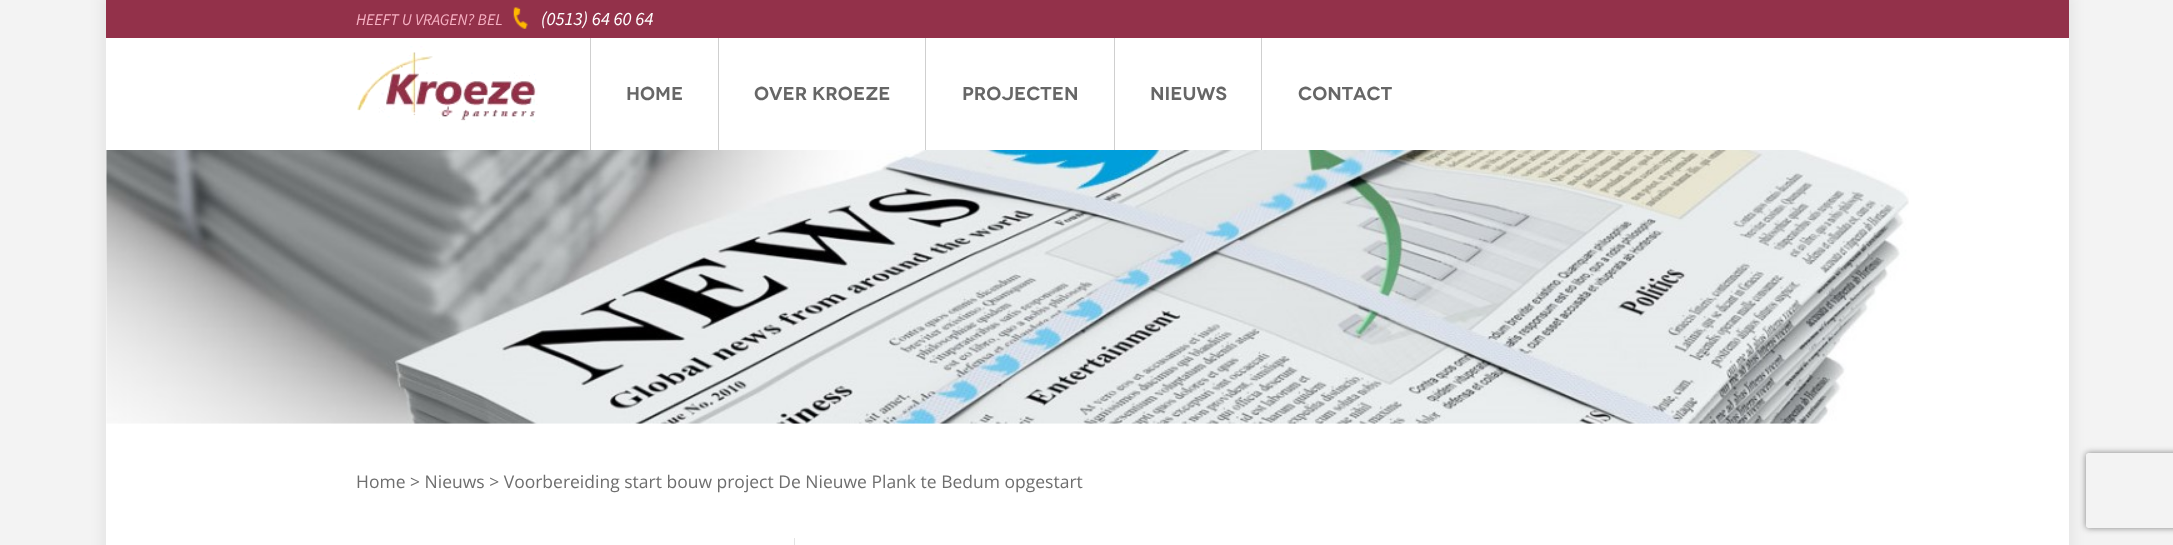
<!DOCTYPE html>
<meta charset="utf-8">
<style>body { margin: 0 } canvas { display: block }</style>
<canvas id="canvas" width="2173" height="545"></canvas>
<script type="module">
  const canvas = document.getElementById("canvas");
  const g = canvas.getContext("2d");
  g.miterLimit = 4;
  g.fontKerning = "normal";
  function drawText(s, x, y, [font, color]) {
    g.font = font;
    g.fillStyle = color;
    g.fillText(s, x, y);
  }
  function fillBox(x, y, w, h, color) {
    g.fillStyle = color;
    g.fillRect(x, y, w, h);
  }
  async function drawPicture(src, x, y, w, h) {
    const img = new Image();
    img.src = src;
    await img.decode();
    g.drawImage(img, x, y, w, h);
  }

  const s1 = ["italic 16.25px Source Sans Pro", "#F5AFC1"];
  const s2 = ["italic 18.75px Source Sans Pro", "#FFFFFF"];
  const s3 = ["600 18.75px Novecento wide", "#666666"];
  const s4 = ["17.5px Open Sans", "#6E6E6E"];

  fillBox(0, 0, 2173, 545, "#F3F3F3");
  g.fillStyle = "rgba(0, 0, 0, 0.05)";
  g.filter = "blur(6px)";
  g.beginPath();
  g.rect(101, -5, 1973, 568);
  g.fill();
  g.filter = "none";
  fillBox(106, 38, 1963, 507, "#FFFFFF");
  fillBox(106, 0, 1963, 38, "#93314A");
  drawText("HEEFT U VRAGEN? BEL", 356, 25, s1);
  await drawPicture("pic1.png", 513, 7, 15, 22);
  drawText("(0513) 64 60 64", 541, 25, s2);
  await drawPicture("pic2.png", 356, 46, 182, 77);
  fillBox(590, 38, 1, 112, "#CFCFCF");
  drawText("HOME", 626, 100, s3);
  fillBox(718, 38, 1, 112, "#CFCFCF");
  drawText("OVER KROEZE", 754, 100, s3);
  fillBox(925, 38, 1, 112, "#CFCFCF");
  drawText("PROJECTEN", 962, 100, s3);
  fillBox(1114, 38, 1, 112, "#CFCFCF");
  drawText("NIEUWS", 1150, 100, s3);
  fillBox(1261, 38, 1, 112, "#CFCFCF");
  drawText("CONTACT", 1298, 100, s3);
  await drawPicture("pic3.png", 106, 150, 1803, 274);
  drawText("Home > Nieuws > Voorbereiding start bouw project De Nieuwe Plank te Bedum opgestart", 356, 488, s4);
  fillBox(794, 538, 1, 7, "#E4E4E4");
  g.save();
  g.beginPath();
  g.moveTo(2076, 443);
  g.lineTo(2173, 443);
  g.lineTo(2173, 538);
  g.lineTo(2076, 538);
  g.closePath();
  g.moveTo(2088.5, 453);
  g.lineTo(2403.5, 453);
  g.bezierCurveTo(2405, 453, 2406, 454, 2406, 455.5);
  g.lineTo(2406, 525.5);
  g.bezierCurveTo(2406, 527, 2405, 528, 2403.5, 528);
  g.lineTo(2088.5, 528);
  g.bezierCurveTo(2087, 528, 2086, 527, 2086, 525.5);
  g.lineTo(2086, 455.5);
  g.bezierCurveTo(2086, 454, 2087, 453, 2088.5, 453);
  g.closePath();
  g.clip("evenodd");
  g.fillStyle = "#808080";
  g.filter = "blur(3px)";
  g.beginPath();
  g.roundRect(2086, 453, 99, 75, 2.5);
  g.fill();
  g.filter = "none";
  g.restore();
</script>
